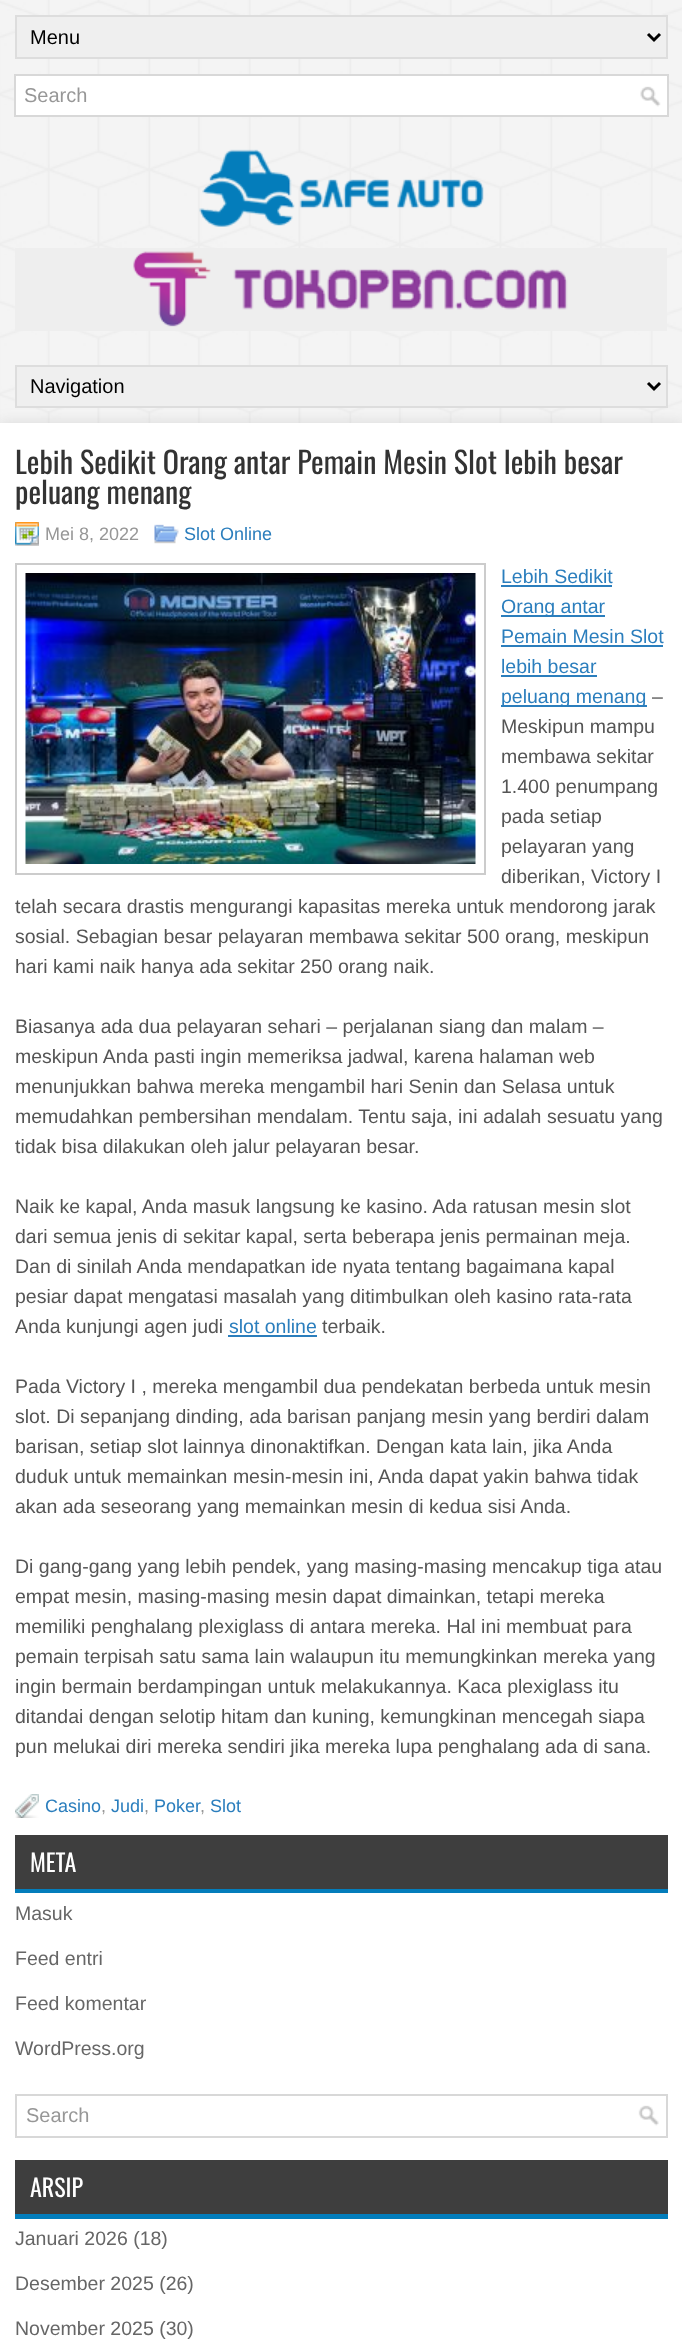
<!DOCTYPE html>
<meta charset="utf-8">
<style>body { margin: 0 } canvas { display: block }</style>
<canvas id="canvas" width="682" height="2347"></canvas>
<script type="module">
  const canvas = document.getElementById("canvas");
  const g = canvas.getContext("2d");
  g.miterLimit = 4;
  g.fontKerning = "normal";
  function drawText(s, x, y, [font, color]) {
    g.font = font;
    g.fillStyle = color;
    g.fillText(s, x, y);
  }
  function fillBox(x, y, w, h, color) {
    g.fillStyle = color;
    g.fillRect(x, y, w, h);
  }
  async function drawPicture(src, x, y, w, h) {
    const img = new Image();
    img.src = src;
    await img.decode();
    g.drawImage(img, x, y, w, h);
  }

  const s1 = ["20px Liberation Sans", "#000000"];
  const s2 = ["20px Liberation Sans", "#979797"];
  const s3 = ["30px Oswald", "#333333"];
  const s4 = ["18px Liberation Sans", "#979797"];
  const s5 = ["18px Liberation Sans", "#2B7EBD"];
  const s6 = ["19.5px Liberation Sans", "#2B7EBD"];
  const s7 = ["19.5px Liberation Sans", "#555555"];
  const s8 = ["24px Oswald", "#FFFFFF"];
  const s9 = ["19.5px Liberation Sans", "#666666"];

  fillBox(0, 0, 682, 2347, "#FFFFFF");
  await drawPicture("pic1.png", 0, 0, 682, 423);
  g.fillStyle = "#EFEFEF";
  g.beginPath();
  g.rect(16, 16, 651, 42);
  g.fill();
  g.strokeStyle = "#DDDDDD";
  g.lineWidth = 2;
  g.stroke();
  g.beginPath();
  g.moveTo(648, 34);
  g.lineTo(654, 40);
  g.lineTo(660, 34);
  g.strokeStyle = "#000000";
  g.lineWidth = 3;
  g.stroke();
  drawText("Menu", 30, 44, s1);
  fillBox(16, 76, 651, 39, "#FFFFFF");
  await drawPicture("pic2.png", 640, 86, 21, 21);
  g.strokeStyle = "#D8D8D8";
  g.lineWidth = 2;
  g.strokeRect(15, 75, 653, 41);
  drawText("Search", 24, 102, s2);
  await drawPicture("pic3.png", 199, 149, 285, 78);
  await drawPicture("pic4.png", 15, 248, 652, 83);
  g.fillStyle = "rgba(96, 96, 96, 0.15)";
  g.filter = "blur(7px)";
  g.beginPath();
  g.rect(-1, 422, 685, 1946);
  g.fill();
  g.filter = "none";
  g.fillStyle = "#EFEFEF";
  g.beginPath();
  g.rect(16, 366, 651, 41);
  g.fill();
  g.strokeStyle = "#DDDDDD";
  g.stroke();
  g.beginPath();
  g.moveTo(648, 383);
  g.lineTo(654, 389);
  g.lineTo(660, 383);
  g.strokeStyle = "#000000";
  g.lineWidth = 3;
  g.stroke();
  drawText("Navigation", 30, 393, s1);
  fillBox(0, 423, 682, 1924, "#FFFFFF");
  drawText("Lebih Sedikit Orang antar Pemain Mesin Slot lebih besar", 15, 474, s3);
  drawText("peluang menang", 15, 504, s3);
  await drawPicture("pic5.png", 15, 522, 24, 24);
  drawText("Mei 8, 2022", 45, 540, s4);
  await drawPicture("pic6.png", 154, 524, 25, 20);
  drawText("Slot Online", 184, 540, s5);
  g.strokeStyle = "#CCCCCC";
  g.lineWidth = 2;
  g.strokeRect(16, 564, 469, 310);
  await drawPicture("pic7.png", 25, 573, 451, 291);
  drawText("Lebih Sedikit", 501, 583, s6);
  fillBox(501, 585, 111, 2, "#2B7EBD");
  fillBox(501, 615, 104, 2, "#2B7EBD");
  drawText("Orang antar", 501, 613, s6);
  drawText("Pemain Mesin Slot", 501, 643, s6);
  fillBox(501, 645, 162, 2, "#2B7EBD");
  drawText("lebih besar", 501, 673, s6);
  fillBox(501, 675, 96, 2, "#2B7EBD");
  fillBox(501, 705, 146, 2, "#2B7EBD");
  drawText("peluang menang", 501, 703, s6);
  drawText("–", 652, 703, s7);
  drawText("Meskipun mampu", 501, 733, s7);
  drawText("membawa sekitar", 501, 763, s7);
  drawText("1.400 penumpang", 501, 793, s7);
  drawText("pada setiap", 501, 823, s7);
  drawText("pelayaran yang", 501, 853, s7);
  drawText("diberikan, Victory I", 501, 883, s7);
  drawText("telah secara drastis mengurangi kapasitas mereka untuk mendorong jarak", 15, 913, s7);
  drawText("sosial. Sebagian besar pelayaran membawa sekitar 500 orang, meskipun", 15, 943, s7);
  drawText("hari kami naik hanya ada sekitar 250 orang naik.", 15, 973, s7);
  drawText("Biasanya ada dua pelayaran sehari – perjalanan siang dan malam –", 15, 1033, s7);
  drawText("meskipun Anda pasti ingin memeriksa jadwal, karena halaman web", 15, 1063, s7);
  drawText("menunjukkan bahwa mereka mengambil hari Senin dan Selasa untuk", 15, 1093, s7);
  drawText("memudahkan pembersihan mendalam. Tentu saja, ini adalah sesuatu yang", 15, 1123, s7);
  drawText("tidak bisa dilakukan oleh jalur pelayaran besar.", 15, 1153, s7);
  drawText("Naik ke kapal, Anda masuk langsung ke kasino. Ada ratusan mesin slot", 15, 1213, s7);
  drawText("dari semua jenis di sekitar kapal, serta beberapa jenis permainan meja.", 15, 1243, s7);
  drawText("Dan di sinilah Anda mendapatkan ide nyata tentang bagaimana kapal", 15, 1273, s7);
  drawText("pesiar dapat mengatasi masalah yang ditimbulkan oleh kasino rata-rata", 15, 1303, s7);
  drawText("Anda kunjungi agen judi", 15, 1333, s7);
  drawText("slot online", 229, 1333, s6);
  fillBox(228, 1335, 89, 2, "#2B7EBD");
  drawText("terbaik.", 322, 1333, s7);
  drawText("Pada Victory I , mereka mengambil dua pendekatan berbeda untuk mesin", 15, 1393, s7);
  drawText("slot. Di sepanjang dinding, ada barisan panjang mesin yang berdiri dalam", 15, 1423, s7);
  drawText("barisan, setiap slot lainnya dinonaktifkan. Dengan kata lain, jika Anda", 15, 1453, s7);
  drawText("duduk untuk memainkan mesin-mesin ini, Anda dapat yakin bahwa tidak", 15, 1483, s7);
  drawText("akan ada seseorang yang memainkan mesin di kedua sisi Anda.", 15, 1513, s7);
  drawText("Di gang-gang yang lebih pendek, yang masing-masing mencakup tiga atau", 15, 1573, s7);
  drawText("empat mesin, masing-masing mesin dapat dimainkan, tetapi mereka", 15, 1603, s7);
  drawText("memiliki penghalang plexiglass di antara mereka. Hal ini membuat para", 15, 1633, s7);
  drawText("pemain terpisah satu sama lain walaupun itu memungkinkan mereka yang", 15, 1663, s7);
  drawText("ingin bermain berdampingan untuk melakukannya. Kaca plexiglass itu", 15, 1693, s7);
  drawText("ditandai dengan selotip hitam dan kuning, kemungkinan mencegah siapa", 15, 1723, s7);
  drawText("pun melukai diri mereka sendiri jika mereka lupa penghalang ada di sana.", 15, 1753, s7);
  await drawPicture("pic8.png", 15, 1794, 24, 24);
  drawText("Casino", 45, 1812, s5);
  drawText(",", 101, 1812, s4);
  drawText("Judi", 111, 1812, s5);
  drawText(",", 144, 1812, s4);
  drawText("Poker", 154, 1812, s5);
  drawText(",", 200, 1812, s4);
  drawText("Slot", 210, 1812, s5);
  g.fillStyle = "#037DBB";
  g.beginPath();
  g.moveTo(15, 1888);
  g.lineTo(15, 1893);
  g.lineTo(668, 1893);
  g.lineTo(668, 1839);
  g.lineTo(668, 1888);
  g.closePath();
  g.fill();
  fillBox(15, 1835, 653, 54, "#3E3E3E");
  drawText("META", 30, 1872, s8);
  drawText("Masuk", 15, 1920, s9);
  drawText("Feed entri", 15, 1965, s9);
  drawText("Feed komentar", 15, 2010, s9);
  drawText("WordPress.org", 15, 2055, s9);
  await drawPicture("pic9.png", 638, 2105, 21, 21);
  g.strokeStyle = "#D8D8D8";
  g.strokeRect(16, 2095, 651, 42);
  drawText("Search", 26, 2122, s2);
  g.fillStyle = "#037DBB";
  g.beginPath();
  g.moveTo(15, 2214);
  g.lineTo(15, 2219);
  g.lineTo(668, 2219);
  g.lineTo(668, 2165);
  g.lineTo(668, 2214);
  g.closePath();
  g.fill();
  fillBox(15, 2160, 653, 54, "#3E3E3E");
  drawText("ARSIP", 30, 2197, s8);
  drawText("Januari 2026 (18)", 15, 2245, s9);
  drawText("Desember 2025 (26)", 15, 2290, s9);
  drawText("November 2025 (30)", 15, 2335, s9);
</script>
